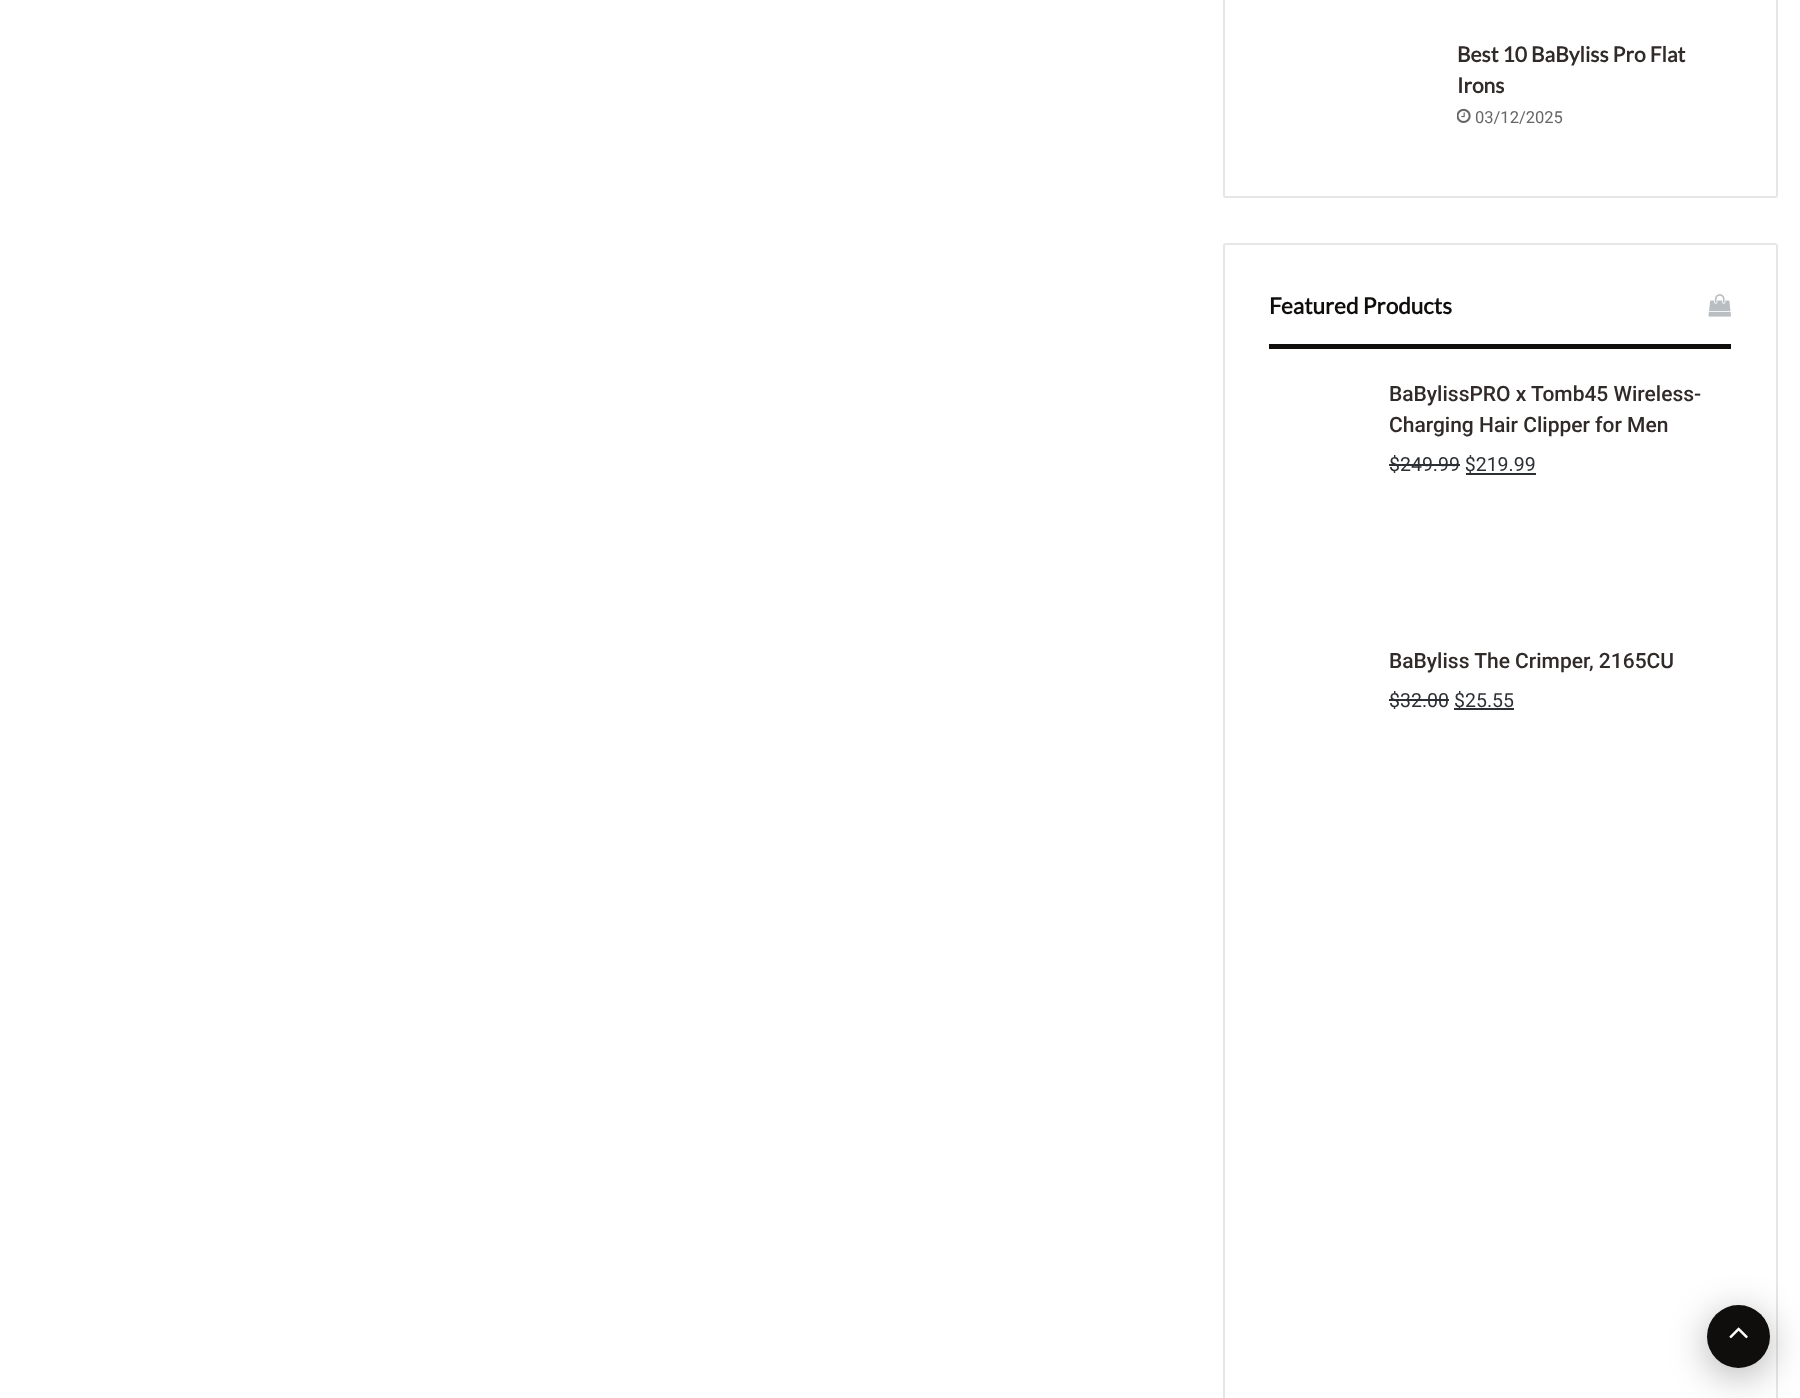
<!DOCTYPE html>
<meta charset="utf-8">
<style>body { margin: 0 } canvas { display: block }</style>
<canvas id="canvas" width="1800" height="1398"></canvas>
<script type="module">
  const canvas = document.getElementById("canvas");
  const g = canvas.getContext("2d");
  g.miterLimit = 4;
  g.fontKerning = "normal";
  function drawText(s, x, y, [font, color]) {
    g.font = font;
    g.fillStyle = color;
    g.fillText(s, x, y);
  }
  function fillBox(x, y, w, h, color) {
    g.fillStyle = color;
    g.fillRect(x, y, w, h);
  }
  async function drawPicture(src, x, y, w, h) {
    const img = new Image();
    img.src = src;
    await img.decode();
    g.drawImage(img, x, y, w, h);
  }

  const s1 = ["bold 21px Lato", "#302A29"];
  const s2 = ["16.5px Roboto", "#666666"];
  const s3 = ["bold 22.5px Lato", "#0F0E0C"];
  const s4 = ["500 21px Roboto", "#302A29"];
  const s5 = ["19.5px Roboto", "#2C2F34"];

  fillBox(0, 0, 1800, 1398, "#FFFFFF");
  g.beginPath();
  g.roundRect(1224, -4, 553, 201, 2);
  g.strokeStyle = "#E6E6E6";
  g.lineWidth = 2;
  g.stroke();
  drawText("Best 10 BaByliss Pro Flat", 1457, 62, s1);
  drawText("Irons", 1457, 93, s1);
  await drawPicture("pic1.png", 1457, 108, 14, 15);
  drawText("03/12/2025", 1475, 123, s2);
  g.beginPath();
  g.roundRect(1224, 244, 553, 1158, 2);
  g.stroke();
  fillBox(1269, 344, 462, 5, "#0F0E0C");
  drawText("Featured Products", 1269, 314, s3);
  await drawPicture("pic2.png", 1708, 294, 23, 23);
  drawText("BaBylissPRO x Tomb45 Wireless-", 1389, 401, s4);
  drawText("Charging Hair Clipper for Men", 1389, 432, s4);
  drawText("$249.99 $219.99", 1389, 471, s5);
  fillBox(1389, 464, 71, 2, "#2C2F34");
  fillBox(1466, 473, 70, 2, "#2C2F34");
  drawText("BaByliss The Crimper, 2165CU", 1389, 668, s4);
  drawText("$32.00", 1389, 707, s5);
  fillBox(1389, 699, 60, 2, "#2C2F34");
  fillBox(1454, 708, 60, 2, "#2C2F34");
  drawText("$25.55", 1454, 707, s5);
  g.fillStyle = "rgba(0, 0, 0, 0.3)";
  g.filter = "blur(19px)";
  g.beginPath();
  g.roundRect(1707, 1313, 63, 63, 31.5);
  g.fill();
  g.filter = "none";
  g.fillStyle = "#0F0E0C";
  g.beginPath();
  g.arc(1738.5, 1336.5, 31.5, 0, Math.PI * 2);
  g.fill();
  await drawPicture("pic3.png", 1729, 1327, 19, 12);
</script>
